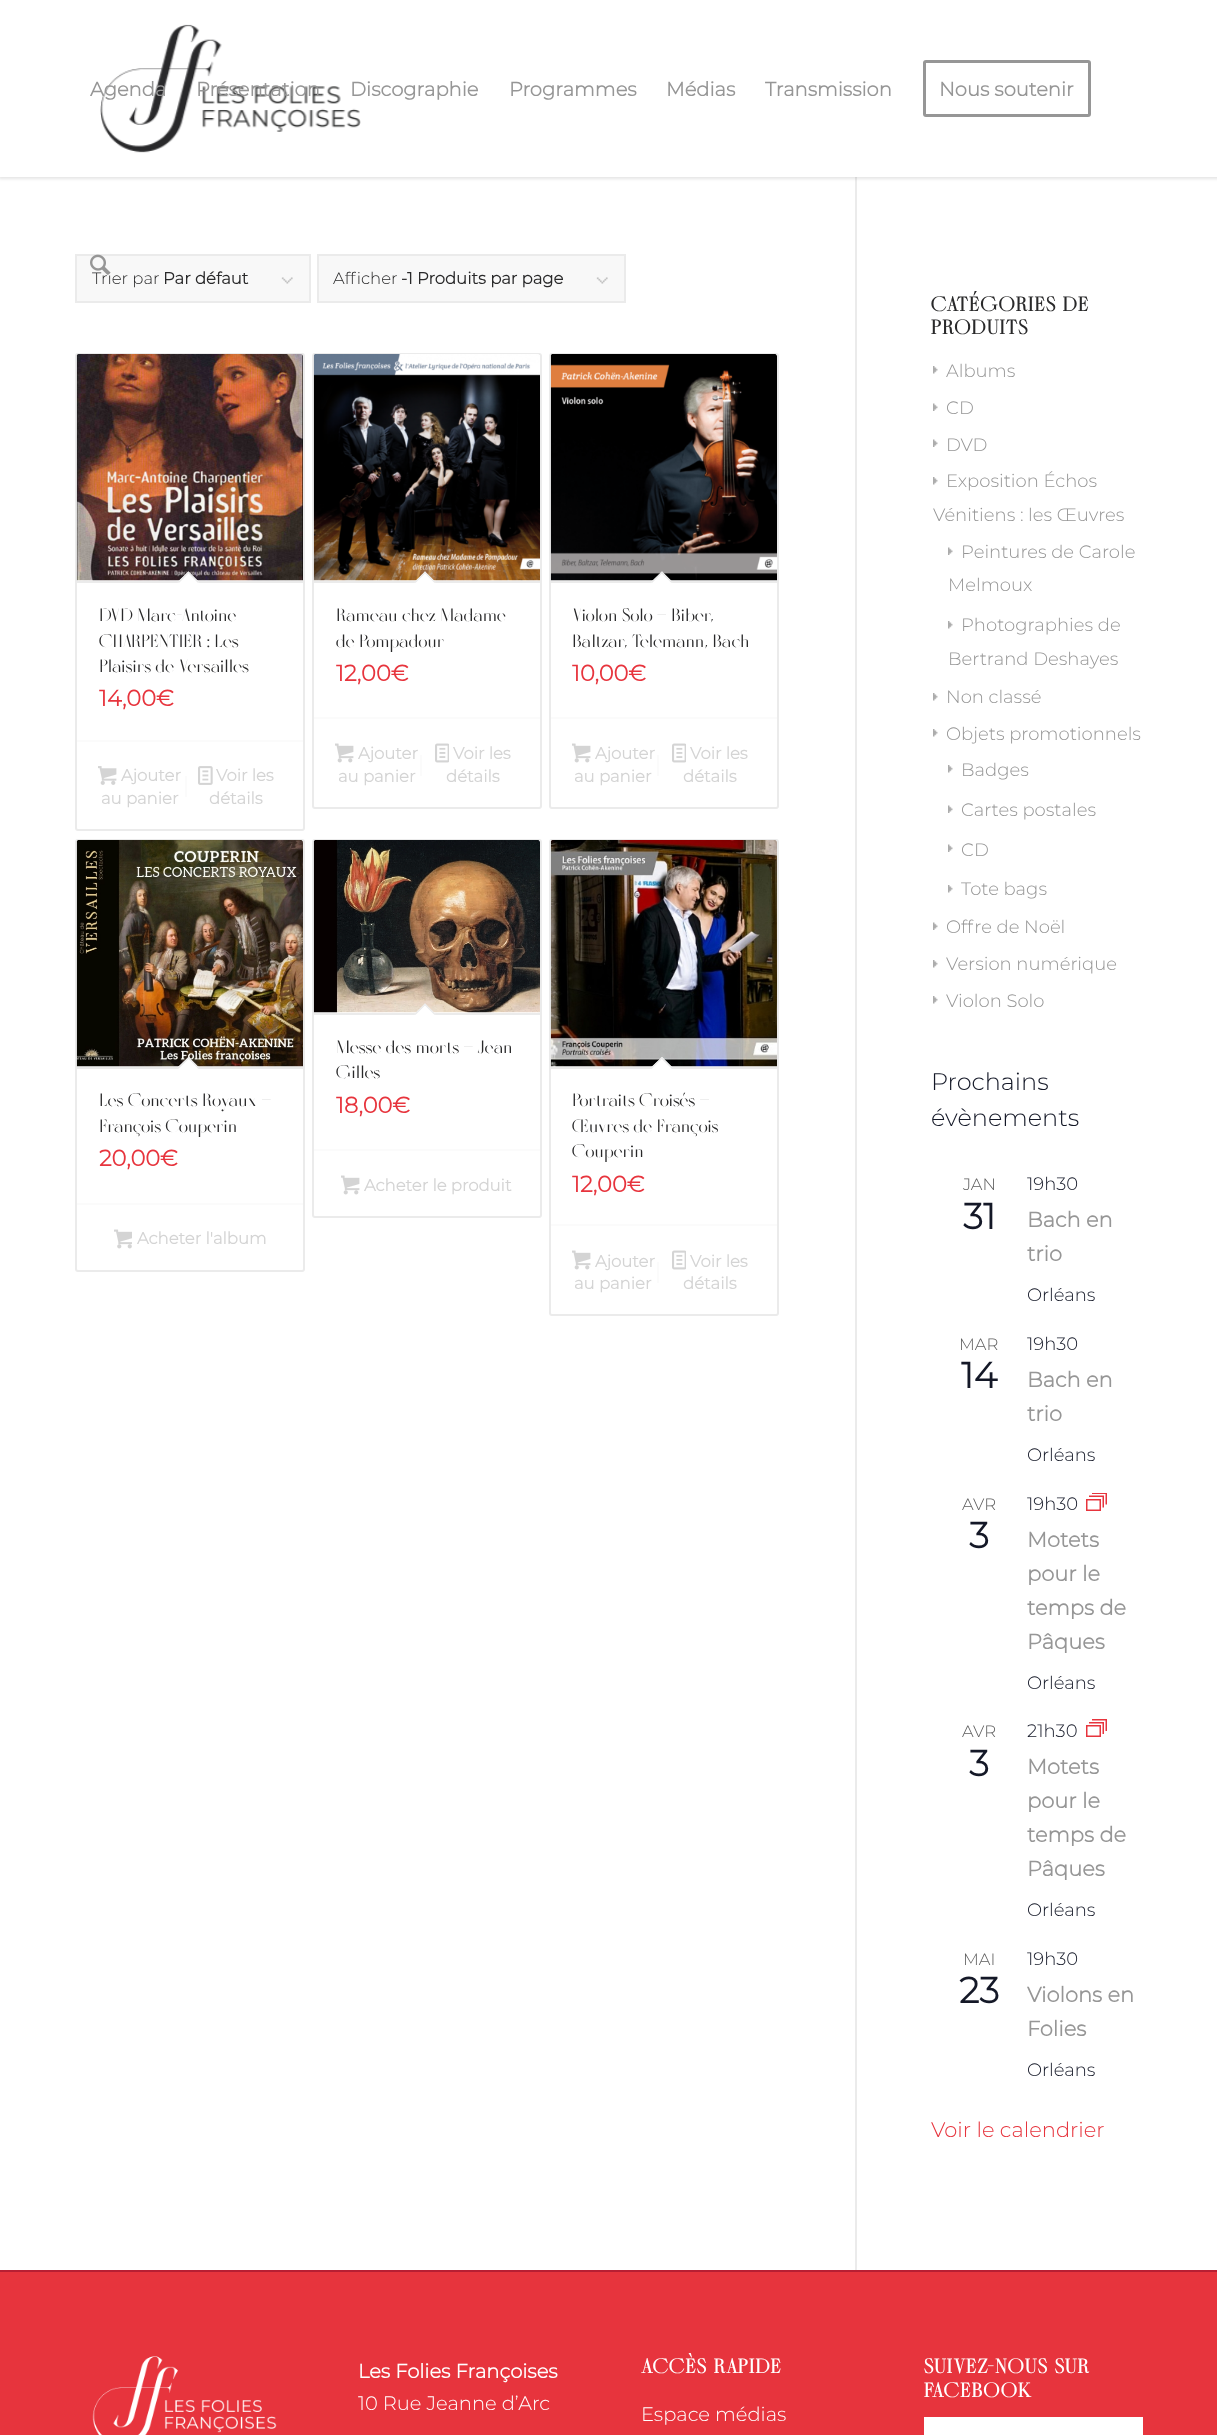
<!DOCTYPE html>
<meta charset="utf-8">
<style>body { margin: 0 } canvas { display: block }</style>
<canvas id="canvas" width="1217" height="2435"></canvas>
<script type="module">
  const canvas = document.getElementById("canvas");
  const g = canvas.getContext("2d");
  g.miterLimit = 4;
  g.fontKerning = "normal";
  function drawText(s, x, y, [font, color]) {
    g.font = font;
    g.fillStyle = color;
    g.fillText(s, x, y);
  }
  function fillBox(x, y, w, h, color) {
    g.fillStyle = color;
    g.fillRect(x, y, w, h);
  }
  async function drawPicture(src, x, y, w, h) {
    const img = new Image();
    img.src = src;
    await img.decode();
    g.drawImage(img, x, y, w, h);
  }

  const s1 = ["bold 19.5px Montserrat", "#969696"];
  const s2 = ["300 16.5px Montserrat", "#29292A"];
  const s3 = ["bold 16.5px Montserrat", "#29292A"];
  const s4 = ["100 19.5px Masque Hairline", "#29292A"];
  const s5 = ["bold 22.5px Montserrat", "#E7343D"];
  const s6 = ["bold 16.5px Montserrat", "#D4D4D4"];
  const s7 = ["bold 21.5px Masque Hairline", "#29292A"];
  const s8 = ["300 18px Montserrat", "#969696"];
  const s9 = ["300 24px Montserrat", "#141827"];
  const s10 = ["300 16.5px Montserrat", "#5D5D5D"];
  const s11 = ["bold 36px Montserrat", "#141827"];
  const s12 = ["300 18px Montserrat", "#141827"];
  const s13 = ["bold 21px Montserrat", "#969696"];
  const s14 = ["300 21px Montserrat", "#E7343D"];
  const s15 = ["bold 19.5px Montserrat", "#FFFFFF"];
  const s16 = ["300 19.5px Montserrat", "#FFFFFF"];
  const s17 = ["bold 21.5px Masque Hairline", "#FFFFFF"];

  fillBox(0, 0, 1217, 2435, "#FFFFFF");
  fillBox(855, 174, 2, 2096, "#EBEBEB");
  g.fillStyle = "rgba(0, 0, 0, 0.1)";
  g.filter = "blur(1.5px)";
  g.beginPath();
  g.rect(-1, -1, 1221, 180);
  g.fill();
  g.filter = "none";
  fillBox(0, 0, 1217, 177, "#FFFFFF");
  await drawPicture("pic1.png", 100, 24, 261, 129);
  drawText("Agenda", 90, 96, s1);
  drawText("Présentation", 196, 96, s1);
  drawText("Discographie", 350, 96, s1);
  drawText("Programmes", 509, 96, s1);
  drawText("Médias", 666, 96, s1);
  drawText("Transmission", 765, 96, s1);
  g.beginPath();
  g.roundRect(924.5, 61.5, 165, 54, 1.5);
  g.strokeStyle = "#969696";
  g.lineWidth = 3;
  g.stroke();
  drawText("Nous soutenir", 939, 96, s1);
  fillBox(77, 256, 232, 45, "#F8F8F8");
  await drawPicture("pic3.png", 281, 277, 12, 7);
  g.strokeStyle = "#EBEBEB";
  g.lineWidth = 2;
  g.strokeRect(76, 255, 234, 47);
  drawText("Trier par", 92, 284, s2);
  await drawPicture("pic2.png", 90, 254, 20, 21);
  drawText("Par défaut", 163, 284, s3);
  fillBox(319, 256, 305, 45, "#F8F8F8");
  await drawPicture("pic3.png", 596, 277, 12, 7);
  g.strokeRect(318, 255, 307, 47);
  drawText("Afficher", 333, 284, s2);
  drawText("-1 Produits par page", 401, 284, s3);
  g.beginPath();
  g.roundRect(76, 354, 228, 476, 2);
  g.stroke();
  await drawPicture("pic4.png", 76, 354, 227, 227);
  fillBox(77, 581, 226, 2, "#EBEBEB");
  g.fillStyle = "#FFFFFF";
  g.beginPath();
  g.moveTo(188.5, 571.5);
  g.lineTo(199, 582);
  g.lineTo(188.5, 593);
  g.lineTo(177.5, 582);
  g.closePath();
  g.fill();
  g.fillStyle = "#EBEBEB";
  g.beginPath();
  g.moveTo(188.5, 571.5);
  g.lineTo(199, 582);
  g.lineTo(198, 583);
  g.lineTo(187.5, 572.5);
  g.closePath();
  g.fill();
  g.beginPath();
  g.moveTo(188.5, 571.5);
  g.lineTo(189.5, 572.5);
  g.lineTo(179, 583);
  g.lineTo(177.5, 582);
  g.closePath();
  g.fill();
  drawText("DVD Marc-Antoine", 99, 621, s4);
  drawText("CHARPENTIER : Les", 99, 647, s4);
  drawText("Plaisirs de Versailles", 99, 672, s4);
  drawText("14,00€", 99, 706, s5);
  fillBox(77, 740, 226, 2, "#FBFBFB");
  await drawPicture("pic5.png", 98, 766, 19, 19);
  drawText("Ajouter", 121, 781, s6);
  drawText("au panier", 101, 804, s6);
  fillBox(185, 776, 2, 21, "#FBFBFB");
  await drawPicture("pic6.png", 198, 766, 15, 19);
  drawText("Voir les", 216, 781, s6);
  drawText("détails", 209, 804, s6);
  g.beginPath();
  g.roundRect(313, 354, 228, 454, 2);
  g.stroke();
  await drawPicture("pic7.png", 313, 354, 227, 227);
  fillBox(314, 581, 226, 2, "#EBEBEB");
  g.fillStyle = "#FFFFFF";
  g.beginPath();
  g.moveTo(425, 571.5);
  g.lineTo(435.5, 582);
  g.lineTo(425, 593);
  g.lineTo(414.5, 582);
  g.closePath();
  g.fill();
  g.fillStyle = "#EBEBEB";
  g.beginPath();
  g.moveTo(425, 571.5);
  g.lineTo(435.5, 582);
  g.lineTo(434.5, 583);
  g.lineTo(424, 572.5);
  g.closePath();
  g.fill();
  g.beginPath();
  g.moveTo(425, 571.5);
  g.lineTo(426, 572.5);
  g.lineTo(415.5, 583);
  g.lineTo(414.5, 582);
  g.closePath();
  g.fill();
  drawText("Rameau chez Madame", 336, 621, s4);
  drawText("de Pompadour", 336, 647, s4);
  drawText("12,00€", 336, 681, s5);
  fillBox(314, 717, 226, 2, "#FBFBFB");
  await drawPicture("pic8.png", 335, 743, 19, 20);
  drawText("Ajouter", 358, 759, s6);
  drawText("au panier", 338, 782, s6);
  fillBox(420, 755, 2, 21, "#FBFBFB");
  await drawPicture("pic9.png", 435, 743, 14, 20);
  drawText("Voir les", 453, 759, s6);
  drawText("détails", 446, 782, s6);
  g.beginPath();
  g.roundRect(550, 354, 228, 454, 2);
  g.stroke();
  await drawPicture("pic10.png", 550, 354, 227, 227);
  fillBox(551, 581, 226, 2, "#EBEBEB");
  g.fillStyle = "#FFFFFF";
  g.beginPath();
  g.moveTo(662, 571.5);
  g.lineTo(672.5, 582);
  g.lineTo(662, 593);
  g.lineTo(651, 582);
  g.closePath();
  g.fill();
  g.fillStyle = "#EBEBEB";
  g.beginPath();
  g.moveTo(662, 571.5);
  g.lineTo(672.5, 582);
  g.lineTo(671.5, 583);
  g.lineTo(660.5, 572.5);
  g.closePath();
  g.fill();
  g.beginPath();
  g.moveTo(662, 571.5);
  g.lineTo(663, 572.5);
  g.lineTo(652, 583);
  g.lineTo(651, 582);
  g.closePath();
  g.fill();
  drawText("Violon Solo – Biber,", 572, 621, s4);
  drawText("Baltzar, Telemann, Bach", 572, 647, s4);
  drawText("10,00€", 572, 681, s5);
  fillBox(551, 717, 226, 2, "#FBFBFB");
  await drawPicture("pic8.png", 572, 743, 19, 20);
  drawText("Ajouter", 595, 759, s6);
  drawText("au panier", 574, 782, s6);
  fillBox(657, 755, 2, 21, "#FBFBFB");
  await drawPicture("pic9.png", 672, 743, 14, 20);
  drawText("Voir les", 690, 759, s6);
  drawText("détails", 683, 782, s6);
  g.beginPath();
  g.roundRect(76, 840, 228, 431, 2);
  g.stroke();
  await drawPicture("pic11.png", 76, 840, 227, 227);
  fillBox(77, 1067, 226, 2, "#EBEBEB");
  g.fillStyle = "#FFFFFF";
  g.beginPath();
  g.moveTo(188.5, 1057);
  g.lineTo(199, 1067.5);
  g.lineTo(188.5, 1078);
  g.lineTo(177.5, 1067.5);
  g.closePath();
  g.fill();
  g.fillStyle = "#EBEBEB";
  g.beginPath();
  g.moveTo(188.5, 1057);
  g.lineTo(199, 1067.5);
  g.lineTo(198, 1068.5);
  g.lineTo(187.5, 1058);
  g.closePath();
  g.fill();
  g.beginPath();
  g.moveTo(188.5, 1057);
  g.lineTo(189.5, 1058);
  g.lineTo(179, 1068.5);
  g.lineTo(177.5, 1067.5);
  g.closePath();
  g.fill();
  drawText("Les Concerts Royaux –", 99, 1106, s4);
  drawText("François Couperin", 99, 1132, s4);
  drawText("20,00€", 99, 1166, s5);
  fillBox(77, 1203, 226, 2, "#FBFBFB");
  await drawPicture("pic12.png", 114, 1229, 18, 20);
  drawText("Acheter l'album", 137, 1244, s6);
  g.beginPath();
  g.roundRect(313, 840, 228, 377, 2);
  g.stroke();
  await drawPicture("pic13.png", 313, 840, 227, 173);
  fillBox(314, 1013, 226, 2, "#EBEBEB");
  g.fillStyle = "#FFFFFF";
  g.beginPath();
  g.moveTo(425, 1003.5);
  g.lineTo(435.5, 1014);
  g.lineTo(425, 1024.5);
  g.lineTo(414.5, 1014);
  g.closePath();
  g.fill();
  g.fillStyle = "#EBEBEB";
  g.beginPath();
  g.moveTo(425, 1003.5);
  g.lineTo(435.5, 1014);
  g.lineTo(434.5, 1015);
  g.lineTo(424, 1004.5);
  g.closePath();
  g.fill();
  g.beginPath();
  g.moveTo(425, 1003.5);
  g.lineTo(426, 1004.5);
  g.lineTo(415.5, 1015);
  g.lineTo(414.5, 1014);
  g.closePath();
  g.fill();
  drawText("Messe des morts – Jean", 336, 1053, s4);
  drawText("Gilles", 336, 1078, s4);
  drawText("18,00€", 336, 1113, s5);
  fillBox(314, 1149, 226, 2, "#FBFBFB");
  await drawPicture("pic14.png", 341, 1175, 19, 20);
  drawText("Acheter le produit", 364, 1191, s6);
  g.beginPath();
  g.roundRect(550, 840, 228, 475, 2);
  g.stroke();
  await drawPicture("pic15.png", 550, 840, 227, 227);
  fillBox(551, 1067, 226, 2, "#EBEBEB");
  g.fillStyle = "#FFFFFF";
  g.beginPath();
  g.moveTo(662, 1057);
  g.lineTo(672.5, 1067.5);
  g.lineTo(662, 1078);
  g.lineTo(651, 1067.5);
  g.closePath();
  g.fill();
  g.fillStyle = "#EBEBEB";
  g.beginPath();
  g.moveTo(662, 1057);
  g.lineTo(672.5, 1067.5);
  g.lineTo(671.5, 1068.5);
  g.lineTo(660.5, 1058);
  g.closePath();
  g.fill();
  g.beginPath();
  g.moveTo(662, 1057);
  g.lineTo(663, 1058);
  g.lineTo(652, 1068.5);
  g.lineTo(651, 1067.5);
  g.closePath();
  g.fill();
  drawText("Portraits Croisés –", 572, 1106, s4);
  drawText("Œuvres de François", 572, 1132, s4);
  drawText("Couperin", 572, 1157, s4);
  drawText("12,00€", 572, 1192, s5);
  fillBox(551, 1224, 226, 2, "#FBFBFB");
  await drawPicture("pic8.png", 572, 1250, 19, 20);
  drawText("Ajouter", 595, 1267, s6);
  drawText("au panier", 574, 1289, s6);
  fillBox(657, 1262, 2, 21, "#FBFBFB");
  await drawPicture("pic9.png", 672, 1250, 14, 20);
  drawText("Voir les", 690, 1267, s6);
  drawText("détails", 683, 1289, s6);
  g.letterSpacing = "1.5px";
  drawText("CATÉGORIES DE", 931, 311, s7);
  drawText("PRODUITS", 931, 334, s7);
  await drawPicture("pic16.png", 933, 366, 5, 8);
  g.letterSpacing = "0px";
  drawText("Albums", 946, 377, s8);
  await drawPicture("pic17.png", 933, 403, 5, 8);
  drawText("CD", 946, 414, s8);
  await drawPicture("pic17.png", 933, 439, 5, 8);
  drawText("DVD", 946, 451, s8);
  await drawPicture("pic16.png", 933, 477, 5, 8);
  drawText("Exposition Échos", 946, 487, s8);
  drawText("Vénitiens : les Œuvres", 933, 521, s8);
  await drawPicture("pic17.png", 948, 547, 5, 8);
  drawText("Peintures de Carole", 961, 558, s8);
  drawText("Melmoux", 948, 591, s8);
  await drawPicture("pic16.png", 948, 621, 5, 8);
  drawText("Photographies de", 961, 631, s8);
  drawText("Bertrand Deshayes", 948, 665, s8);
  await drawPicture("pic16.png", 933, 693, 5, 8);
  drawText("Non classé", 946, 703, s8);
  await drawPicture("pic16.png", 933, 729, 5, 8);
  drawText("Objets promotionnels", 946, 740, s8);
  await drawPicture("pic16.png", 948, 765, 5, 8);
  drawText("Badges", 961, 776, s8);
  await drawPicture("pic17.png", 948, 805, 5, 8);
  drawText("Cartes postales", 961, 816, s8);
  await drawPicture("pic17.png", 948, 844, 5, 8);
  drawText("CD", 961, 856, s8);
  await drawPicture("pic16.png", 948, 885, 5, 8);
  drawText("Tote bags", 961, 895, s8);
  await drawPicture("pic17.png", 933, 922, 5, 8);
  drawText("Offre de Noël", 946, 933, s8);
  await drawPicture("pic16.png", 933, 960, 5, 8);
  drawText("Version numérique", 946, 970, s8);
  await drawPicture("pic16.png", 933, 996, 5, 8);
  drawText("Violon Solo", 946, 1007, s8);
  drawText("Prochains", 931, 1090, s9);
  drawText("évènements", 931, 1126, s9);
  drawText("JAN", 963, 1190, s10);
  drawText("31", 963, 1229, s11);
  drawText("19h30", 1027, 1190, s12);
  drawText("Bach en", 1027, 1227, s13);
  drawText("trio", 1027, 1261, s13);
  drawText("Orléans", 1027, 1301, s12);
  drawText("MAR", 959, 1350, s10);
  drawText("14", 961, 1388, s11);
  drawText("19h30", 1027, 1350, s12);
  drawText("Bach en", 1027, 1387, s13);
  drawText("trio", 1027, 1421, s13);
  drawText("Orléans", 1027, 1461, s12);
  drawText("AVR", 962, 1510, s10);
  drawText("3", 969, 1548, s11);
  drawText("19h30", 1027, 1510, s12);
  await drawPicture("pic18.png", 1086, 1493, 21, 18);
  drawText("Motets", 1027, 1547, s13);
  drawText("pour le", 1027, 1581, s13);
  drawText("temps de", 1027, 1615, s13);
  drawText("Pâques", 1027, 1649, s13);
  drawText("Orléans", 1027, 1689, s12);
  drawText("AVR", 962, 1737, s10);
  drawText("3", 969, 1776, s11);
  drawText("21h30", 1027, 1737, s12);
  await drawPicture("pic19.png", 1086, 1719, 21, 18);
  drawText("Motets", 1027, 1774, s13);
  drawText("pour le", 1027, 1808, s13);
  drawText("temps de", 1027, 1842, s13);
  drawText("Pâques", 1027, 1876, s13);
  drawText("Orléans", 1027, 1916, s12);
  drawText("MAI", 963, 1965, s10);
  drawText("23", 959, 2003, s11);
  drawText("19h30", 1027, 1965, s12);
  drawText("Violons en", 1027, 2002, s13);
  drawText("Folies", 1027, 2036, s13);
  drawText("Orléans", 1027, 2076, s12);
  drawText("Voir le calendrier", 931, 2137, s14);
  fillBox(0, 2272, 1217, 163, "#E7343D");
  fillBox(0, 2270, 1217, 2, "#B81F33");
  await drawPicture("pic20.png", 92, 2356, 185, 79);
  drawText("Les Folies Françoises", 358, 2378, s15);
  drawText("10 Rue Jeanne d’Arc", 358, 2410, s16);
  g.letterSpacing = "1.5px";
  drawText("ACCÈS RAPIDE", 641, 2373, s17);
  g.letterSpacing = "0px";
  drawText("Espace médias", 641, 2421, s16);
  g.letterSpacing = "1.5px";
  drawText("SUIVEZ-NOUS SUR", 924, 2373, s17);
  drawText("FACEBOOK", 924, 2397, s17);
  fillBox(924, 2417, 219, 18, "#FFFFFF");
</script>
